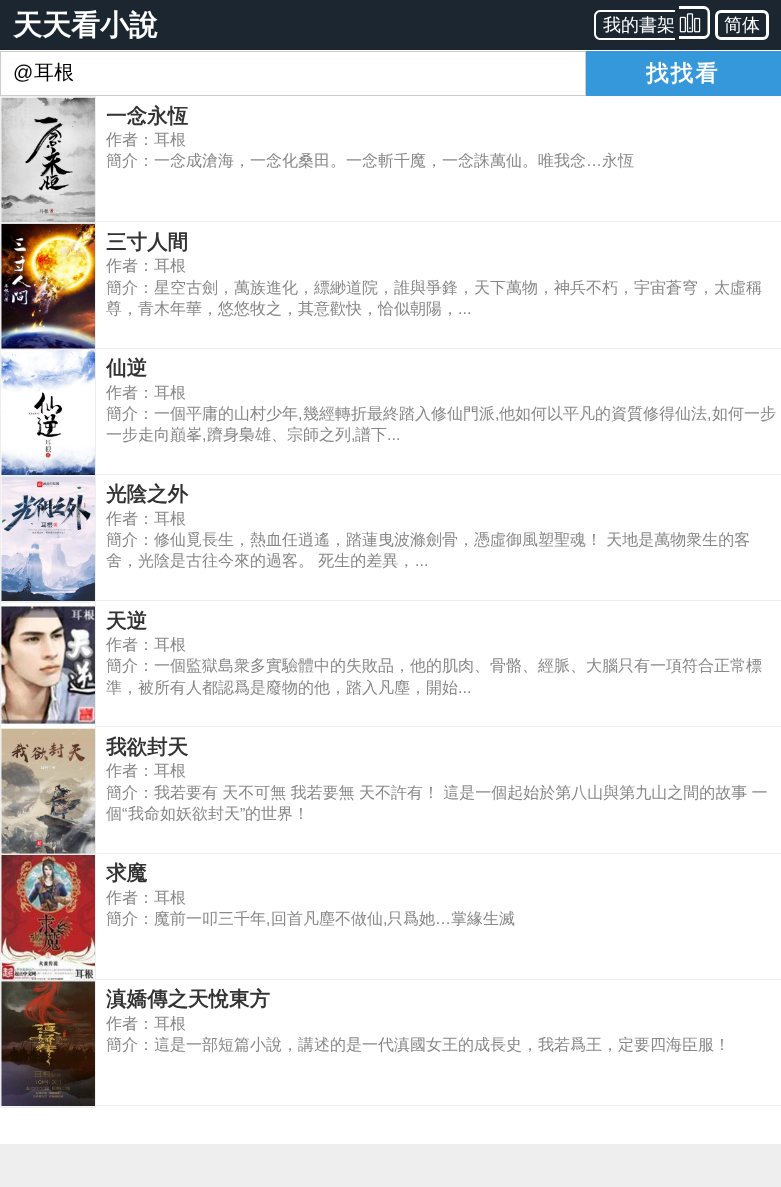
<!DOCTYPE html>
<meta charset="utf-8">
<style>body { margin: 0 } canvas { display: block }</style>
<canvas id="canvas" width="781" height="1187"></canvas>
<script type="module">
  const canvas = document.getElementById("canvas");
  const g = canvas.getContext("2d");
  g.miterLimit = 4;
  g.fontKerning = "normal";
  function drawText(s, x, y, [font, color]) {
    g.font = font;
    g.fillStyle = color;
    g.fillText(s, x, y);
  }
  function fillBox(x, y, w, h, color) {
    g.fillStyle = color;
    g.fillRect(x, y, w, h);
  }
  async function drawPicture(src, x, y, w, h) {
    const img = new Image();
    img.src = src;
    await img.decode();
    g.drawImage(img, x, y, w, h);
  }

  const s1 = ["bold 29px WenQuanYi Zen Hei", "#FFFFFF"];
  const s2 = ["500 18px WenQuanYi Zen Hei", "#FFFFFF"];
  const s3 = ["20px Liberation Sans", "#000000"];
  const s4 = ["500 20px WenQuanYi Zen Hei", "#000000"];
  const s5 = ["bold 22.5px WenQuanYi Zen Hei", "#FFFFFF"];
  const s6 = ["bold 20.5px WenQuanYi Zen Hei", "#333333"];
  const s7 = ["500 16px WenQuanYi Zen Hei", "#888888"];
  const s8 = ["16px Liberation Sans", "#888888"];

  fillBox(0, 0, 781, 1187, "#FFFFFF");
  fillBox(0, 0, 781, 50, "#1B2631");
  drawText("天天看小說", 13, 35, s1);
  g.beginPath();
  g.moveTo(600, 10);
  g.lineTo(675, 10);
  g.lineTo(675, 40);
  g.lineTo(600, 40);
  g.bezierCurveTo(597, 40, 594, 37, 594, 34);
  g.lineTo(594, 16);
  g.bezierCurveTo(594, 13, 597, 10, 600, 10);
  g.closePath();
  g.moveTo(600, 12);
  g.lineTo(675, 12);
  g.lineTo(675, 38);
  g.lineTo(600, 38);
  g.bezierCurveTo(598, 38, 596, 36, 596, 34);
  g.lineTo(596, 16);
  g.bezierCurveTo(596, 14, 598, 12, 600, 12);
  g.closePath();
  g.fill("evenodd");
  g.beginPath();
  g.moveTo(679, 6);
  g.lineTo(704, 6);
  g.bezierCurveTo(707, 6, 710, 9, 710, 12.5);
  g.lineTo(710, 32.5);
  g.bezierCurveTo(710, 36, 707, 39, 704, 39);
  g.lineTo(679, 39);
  g.closePath();
  g.moveTo(679, 9);
  g.lineTo(704, 9);
  g.bezierCurveTo(706, 9, 707.5, 10.5, 707.5, 12.5);
  g.lineTo(707.5, 32.5);
  g.bezierCurveTo(707.5, 34.5, 706, 36, 704, 36);
  g.lineTo(679, 36);
  g.closePath();
  g.fill("evenodd");
  drawText("我的書架", 603, 31, s2);
  await drawPicture("pic1.png", 679, 13, 22, 20);
  g.beginPath();
  g.roundRect(716.5, 11.5, 51, 27, 4.5);
  g.strokeStyle = "#FFFFFF";
  g.lineWidth = 3;
  g.stroke();
  drawText("简体", 724, 31, s2);
  g.strokeStyle = "#CCCCCC";
  g.lineWidth = 1;
  g.strokeRect(0.5, 51.5, 585, 44);
  drawText("@", 13, 79, s3);
  drawText("耳根", 34, 79, s4);
  fillBox(586, 51, 195, 45, "#3498DB");
  g.letterSpacing = "2px";
  drawText("找找看", 646, 81, s5);
  fillBox(0, 221, 781, 1, "#EEEEEE");
  g.strokeStyle = "#EEEEEE";
  g.strokeRect(0.5, 96.5, 95, 127);
  await drawPicture("pic2.png", 1, 97, 94, 126);
  g.letterSpacing = "0px";
  drawText("一念永恆", 106, 123, s6);
  drawText("作者：耳根", 106, 145, s7);
  drawText("簡介：一念成滄海，一念化桑田。一念斬千魔，一念誅萬仙。唯我念", 106, 166, s7);
  drawText("…", 586, 166, s8);
  drawText("永恆", 602, 166, s7);
  fillBox(0, 348, 781, 1, "#EEEEEE");
  g.strokeRect(0.5, 223.5, 95, 126);
  await drawPicture("pic3.png", 1, 223, 94, 126);
  drawText("三寸人間", 106, 249, s6);
  drawText("作者：耳根", 106, 271, s7);
  drawText("簡介：星空古劍，萬族進化，縹緲道院，誰與爭鋒，天下萬物，神兵不朽，宇宙蒼穹，太虛稱", 106, 293, s7);
  drawText("尊，青木年華，悠悠牧之，其意歡快，恰似朝陽，", 106, 314, s7);
  drawText("...", 458, 314, s8);
  fillBox(0, 474, 781, 1, "#EEEEEE");
  g.strokeRect(0.5, 349.5, 95, 126);
  await drawPicture("pic4.png", 1, 350, 94, 125);
  drawText("仙逆", 106, 375, s6);
  drawText("作者：耳根", 106, 398, s7);
  drawText("簡介：一個平庸的山村少年", 106, 419, s7);
  drawText(",", 298, 419, s8);
  drawText("幾經轉折最終踏入修仙門派", 303, 419, s7);
  drawText(",", 495, 419, s8);
  drawText("他如何以平凡的資質修得仙法", 499, 419, s7);
  drawText(",", 707, 419, s8);
  drawText("如何一步", 712, 419, s7);
  drawText("一步走向巔峯", 106, 440, s7);
  drawText(",", 202, 440, s8);
  drawText("躋身梟雄、宗師之列", 207, 440, s7);
  drawText(",", 351, 440, s8);
  drawText("譜下", 355, 440, s7);
  drawText("...", 387, 440, s8);
  fillBox(0, 600, 781, 1, "#EEEEEE");
  g.strokeRect(0.5, 475.5, 95, 127);
  await drawPicture("pic5.png", 1, 476, 94, 125);
  drawText("光陰之外", 106, 501, s6);
  drawText("作者：耳根", 106, 524, s7);
  g.wordSpacing = "-0.5px";
  drawText("簡介：修仙覓長生，熱血任逍遙，踏蓮曳波滌劍骨，憑虛御風塑聖魂！ 天地是萬物衆生的客", 106, 545, s7);
  drawText("舍，光陰是古往今來的過客。 死生的差異，", 106, 566, s7);
  g.wordSpacing = "0px";
  drawText("...", 415, 566, s8);
  fillBox(0, 726, 781, 1, "#EEEEEE");
  g.strokeRect(0.5, 601.5, 95, 127);
  await drawPicture("pic6.png", 1, 602, 94, 126);
  drawText("天逆", 106, 628, s6);
  drawText("作者：耳根", 106, 650, s7);
  drawText("簡介：一個監獄島衆多實驗體中的失敗品，他的肌肉、骨骼、經脈、大腦只有一項符合正常標", 106, 671, s7);
  drawText("準，被所有人都認爲是廢物的他，踏入凡塵，開始", 106, 693, s7);
  drawText("...", 458, 693, s8);
  fillBox(0, 853, 781, 1, "#EEEEEE");
  g.strokeRect(0.5, 728.5, 95, 126);
  await drawPicture("pic7.png", 1, 728, 94, 126);
  drawText("我欲封天", 106, 754, s6);
  drawText("作者：耳根", 106, 776, s7);
  g.wordSpacing = "-0.5px";
  drawText("簡介：我若要有 天不可無 我若要無 天不許有！ 這是一個起始於第八山與第九山之間的故事 一", 106, 798, s7);
  g.wordSpacing = "0px";
  drawText("個", 106, 819, s7);
  drawText("“", 122, 819, s8);
  drawText("我命如妖欲封天", 128, 819, s7);
  drawText("”", 240, 819, s8);
  drawText("的世界！", 245, 819, s7);
  fillBox(0, 979, 781, 1, "#EEEEEE");
  g.strokeRect(0.5, 854.5, 95, 126);
  await drawPicture("pic8.png", 1, 855, 94, 125);
  drawText("求魔", 106, 880, s6);
  drawText("作者：耳根", 106, 903, s7);
  drawText("簡介：魔前一叩三千年", 106, 924, s7);
  drawText(",", 266, 924, s8);
  drawText("回首凡塵不做仙", 271, 924, s7);
  drawText(",", 383, 924, s8);
  drawText("只爲她", 387, 924, s7);
  drawText("…", 435, 924, s8);
  drawText("掌緣生滅", 451, 924, s7);
  fillBox(0, 1105, 781, 1, "#EEEEEE");
  g.strokeRect(0.5, 980.5, 95, 127);
  await drawPicture("pic9.png", 1, 981, 94, 126);
  drawText("滇嬌傳之天悅東方", 106, 1006, s6);
  drawText("作者：耳根", 106, 1029, s7);
  drawText("簡介：這是一部短篇小說，講述的是一代滇國女王的成長史，我若爲王，定要四海臣服！", 106, 1050, s7);
  fillBox(0, 1144, 781, 43, "#EEEEEE");
</script>
